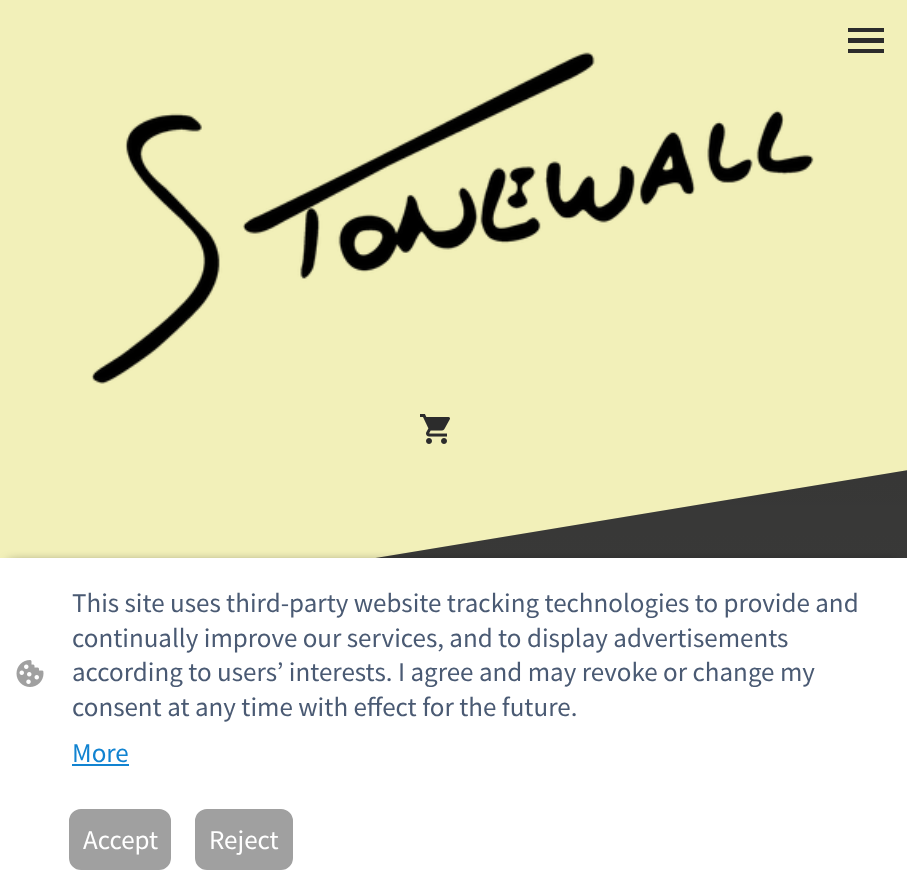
<!DOCTYPE html>
<meta charset="utf-8">
<style>body { margin: 0 } canvas { display: block }</style>
<canvas id="canvas" width="907" height="881"></canvas>
<script type="module">
  const canvas = document.getElementById("canvas");
  const g = canvas.getContext("2d");
  g.miterLimit = 4;
  g.fontKerning = "normal";
  function drawText(s, x, y, [font, color]) {
    g.font = font;
    g.fillStyle = color;
    g.fillText(s, x, y);
  }
  function fillBox(x, y, w, h, color) {
    g.fillStyle = color;
    g.fillRect(x, y, w, h);
  }
  async function drawPicture(src, x, y, w, h) {
    const img = new Image();
    img.src = src;
    await img.decode();
    g.drawImage(img, x, y, w, h);
  }
  let gradient;

  const s1 = ["27px Source Sans Pro", "#4A5A73"];
  const s2 = ["27px Source Sans Pro", "#1183D1"];
  const s3 = ["27px Source Sans Pro", "#FFFFFF"];

  fillBox(0, 0, 907, 881, "#F2F0B9");
  fillBox(848, 28, 36, 4, "#2C2C2C");
  fillBox(848, 38, 36, 5, "#2C2C2C");
  fillBox(848, 49, 36, 4, "#2C2C2C");
  await drawPicture("pic1.png", 420, 414, 30, 30);
  await drawPicture("pic2.png", 91, 52, 723, 332);
  g.fillStyle = "#3B3B3A";
  g.beginPath();
  g.moveTo(0, 620);
  g.lineTo(0, 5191);
  g.lineTo(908, 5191);
  g.lineTo(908, 470);
  g.closePath();
  g.fill();
  gradient = g.createLinearGradient(454, 469, 454, 695);
  gradient.addColorStop(0, "rgba(0, 0, 0, 0.07)");
  gradient.addColorStop(1, "rgba(0, 0, 0, 0)");
  g.fillStyle = gradient;
  g.beginPath();
  g.moveTo(0, 620);
  g.lineTo(0, 695);
  g.lineTo(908, 695);
  g.lineTo(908, 470);
  g.closePath();
  g.fill();
  g.fillStyle = "rgba(0, 0, 0, 0.63)";
  g.filter = "blur(6px)";
  g.beginPath();
  g.rect(9, 563, 890, 306);
  g.fill();
  g.filter = "none";
  fillBox(0, 558, 907, 323, "#FFFFFF");
  await drawPicture("pic3.png", 16, 660, 28, 27);
  drawText("This site uses third-party website tracking technologies to provide and", 72, 612, s1);
  drawText("continually improve our services, and to display advertisements", 72, 647, s1);
  drawText("according to users’ interests. I agree and may revoke or change my", 72, 681, s1);
  drawText("consent at any time with effect for the future.", 72, 716, s1);
  drawText("More", 72, 762, s2);
  fillBox(72, 764, 57, 2, "#1183D1");
  g.fillStyle = "#A0A0A0";
  g.beginPath();
  g.roundRect(70, 810, 100, 59, 11);
  g.fill();
  g.strokeStyle = "#A0A0A0";
  g.lineWidth = 2;
  g.stroke();
  drawText("Accept", 83, 849, s3);
  g.fillStyle = "#A0A0A0";
  g.beginPath();
  g.roundRect(196, 810, 96, 59, 11);
  g.fill();
  g.stroke();
  drawText("Reject", 209, 849, s3);
</script>
